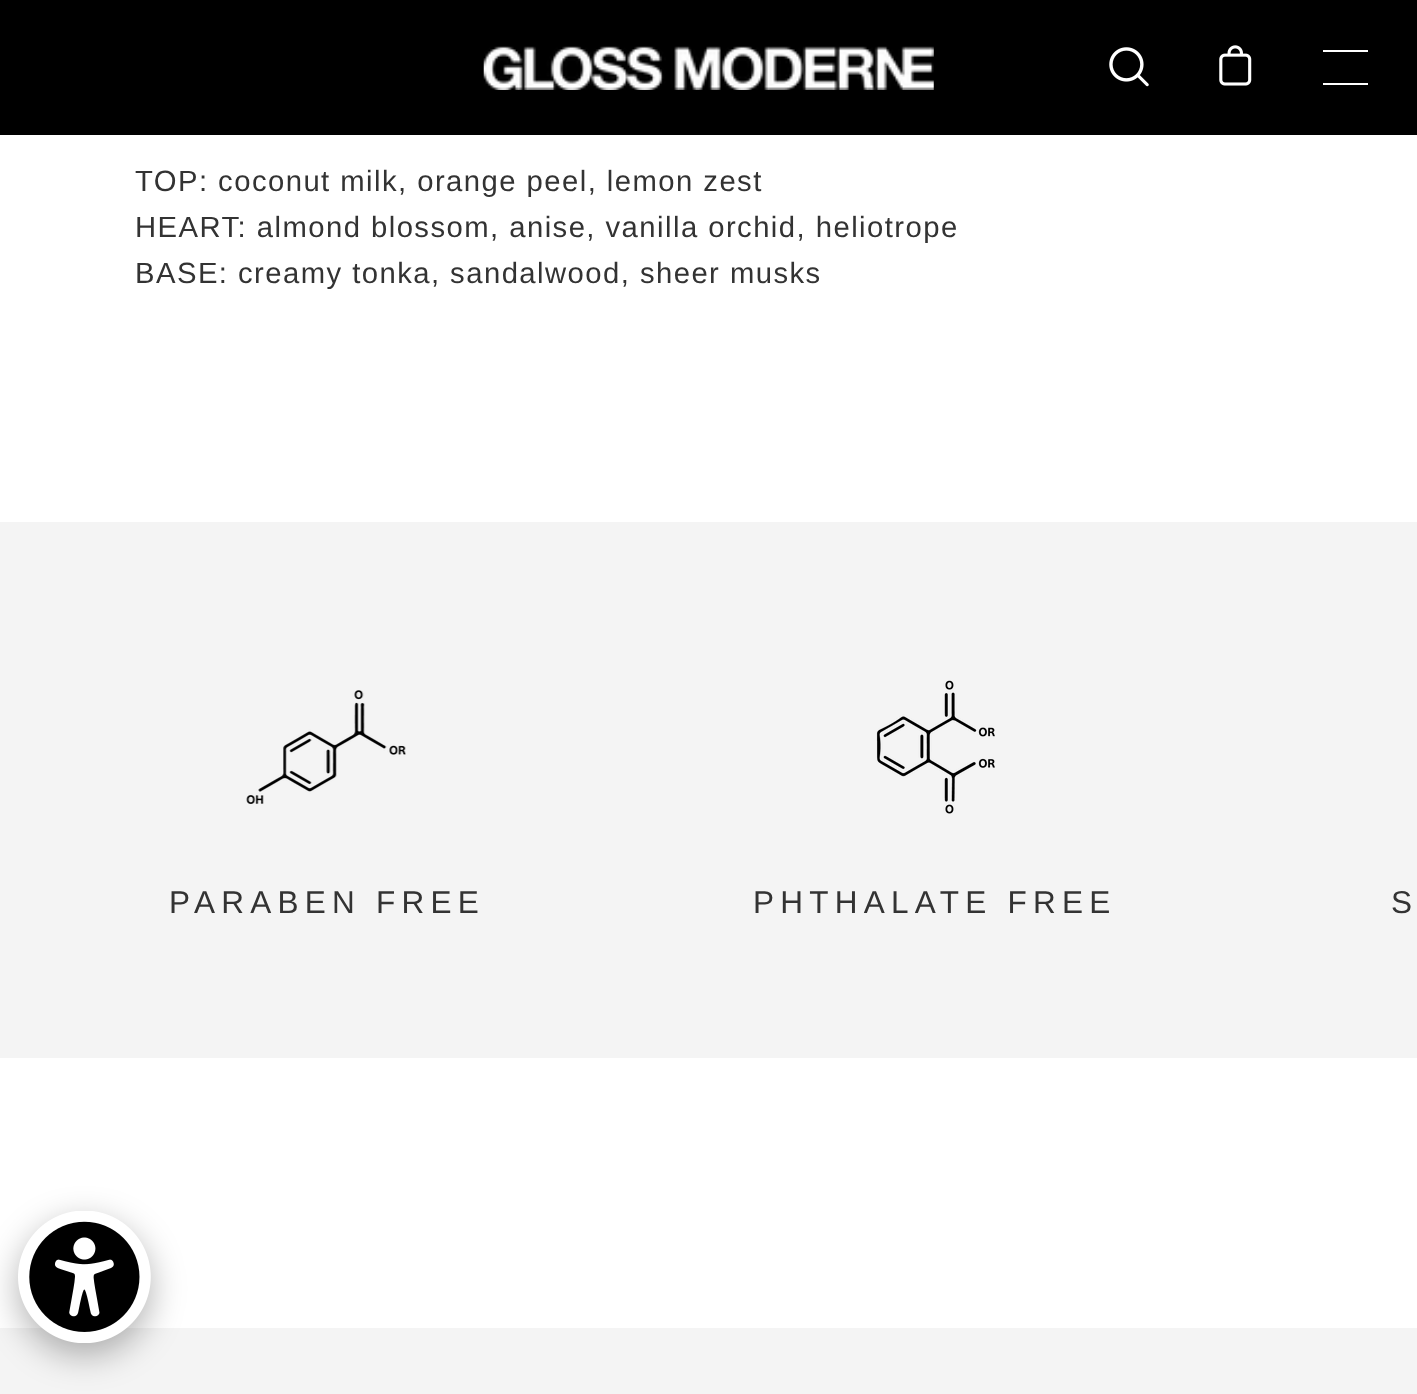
<!DOCTYPE html>
<meta charset="utf-8">
<style>body { margin: 0 } canvas { display: block }</style>
<canvas id="canvas" width="1417" height="1394"></canvas>
<script type="module">
  const canvas = document.getElementById("canvas");
  const g = canvas.getContext("2d");
  g.miterLimit = 4;
  g.fontKerning = "normal";
  function drawText(s, x, y, [font, color]) {
    g.font = font;
    g.fillStyle = color;
    g.fillText(s, x, y);
  }
  function fillBox(x, y, w, h, color) {
    g.fillStyle = color;
    g.fillRect(x, y, w, h);
  }
  async function drawPicture(src, x, y, w, h) {
    const img = new Image();
    img.src = src;
    await img.decode();
    g.drawImage(img, x, y, w, h);
  }

  const s1 = ["29.25px Liberation Sans", "#333333"];
  const s2 = ["31.5px Liberation Sans", "#333333"];

  fillBox(0, 0, 1417, 1394, "#FFFFFF");
  fillBox(0, 0, 1417, 135, "#000000");
  await drawPicture("pic1.png", 483, 46, 451, 44);
  await drawPicture("pic2.png", 1109, 47, 40, 40);
  await drawPicture("pic3.png", 1219, 45, 33, 41);
  fillBox(1323, 50, 45, 2, "#FFFFFF");
  fillBox(1323, 83, 45, 2, "#FFFFFF");
  g.letterSpacing = "1.45px";
  drawText("TOP: coconut milk, orange peel, lemon zest", 135, 191, s1);
  drawText("HEART: almond blossom, anise, vanilla orchid, heliotrope", 135, 237, s1);
  drawText("BASE: creamy tonka, sandalwood, sheer musks", 135, 283, s1);
  fillBox(0, 522, 1417, 536, "#F4F4F4");
  await drawPicture("pic4.png", 246, 690, 160, 114);
  g.letterSpacing = "6.25px";
  drawText("PARABEN FREE", 169, 913, s2);
  await drawPicture("pic5.png", 876, 680, 119, 134);
  drawText("PHTHALATE FREE", 753, 913, s2);
  drawText("S", 1391, 913, s2);
  fillBox(0, 1328, 1417, 66, "#F4F4F4");
  g.fillStyle = "rgba(0, 0, 0, 0.3)";
  g.filter = "blur(17px)";
  g.beginPath();
  g.roundRect(18, 1222, 133, 133, 66.5);
  g.fill();
  g.filter = "none";
  await drawPicture("pic6.png", 18, 1211, 133, 132);
</script>
